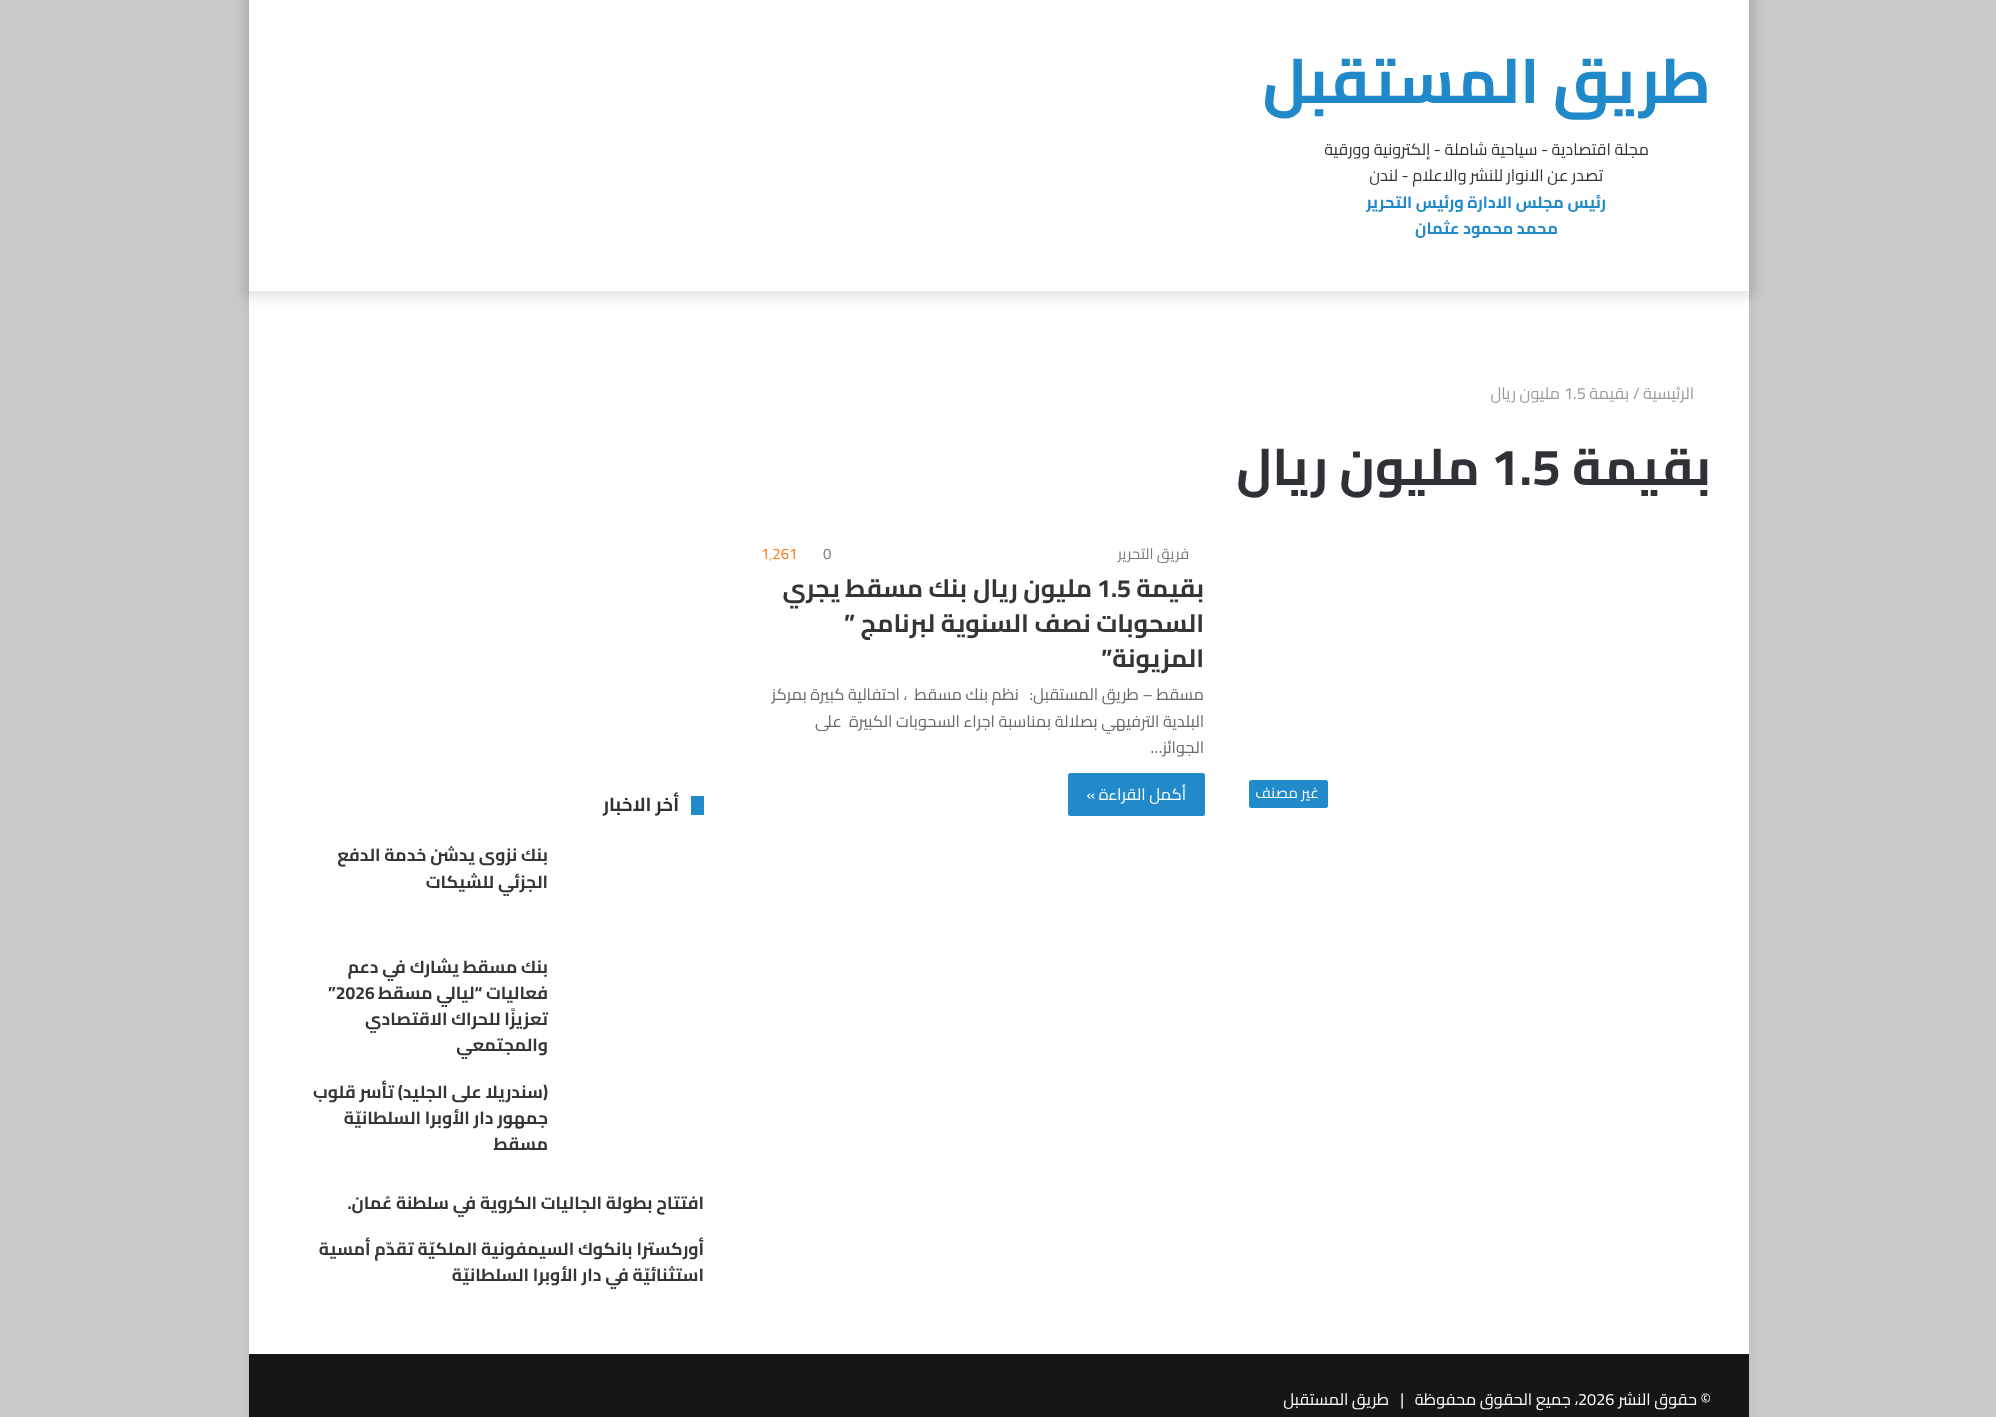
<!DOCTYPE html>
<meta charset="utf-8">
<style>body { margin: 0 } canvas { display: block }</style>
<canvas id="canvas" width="1996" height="1417"></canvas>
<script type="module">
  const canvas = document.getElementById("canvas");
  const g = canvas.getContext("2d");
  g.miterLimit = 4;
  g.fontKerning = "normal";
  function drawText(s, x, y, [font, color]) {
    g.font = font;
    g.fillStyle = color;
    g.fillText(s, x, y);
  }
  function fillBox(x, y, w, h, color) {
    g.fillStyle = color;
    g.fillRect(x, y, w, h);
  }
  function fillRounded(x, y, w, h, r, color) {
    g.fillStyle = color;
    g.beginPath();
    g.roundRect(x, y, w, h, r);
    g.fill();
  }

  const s1 = ["bold 62.5px Cairo", "#1F89CA"];
  const s2 = ["16.25px Cairo", "#2E3136"];
  const s3 = ["bold 16.25px Cairo", "#1F89CA"];
  const s4 = ["16.25px Cairo", "#9A9A9A"];
  const s5 = ["bold 51.25px Cairo", "#2E3136"];
  const s6 = ["15px Cairo", "#FFFFFF"];
  const s7 = ["15px Cairo", "#777777"];
  const s8 = ["15px Cairo", "#F47614"];
  const s9 = ["bold 25px Cairo", "#353535"];
  const s10 = ["16.25px Cairo", "#686868"];
  const s11 = ["16.25px Cairo", "#FFFFFF"];
  const s12 = ["bold 18.75px Cairo", "#2E3136"];
  const s13 = ["bold 17.5px Cairo", "#353535"];

  fillBox(0, 0, 1996, 1417, "#C9C9C9");
  g.fillStyle = "rgba(171, 171, 171, 0.5)";
  g.filter = "blur(4.5px)";
  g.beginPath();
  g.rect(249, -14, 1500, 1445);
  g.fill();
  g.filter = "none";
  fillBox(249, 291, 1500, 1063, "#FFFFFF");
  g.fillStyle = "rgba(0, 0, 0, 0.1)";
  g.filter = "blur(6px)";
  g.beginPath();
  g.rect(243, -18, 1512, 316);
  g.fill();
  g.filter = "none";
  fillBox(249, 0, 1500, 291, "#FFFFFF");
  g.direction = "rtl";
  drawText("طريق المستقبل", 1711, 103, s1);
  drawText("مجلة اقتصادية - سياحية شاملة - إلكترونية وورقية", 1649, 155, s2);
  drawText("تصدر عن الانوار للنشر والاعلام - لندن", 1603, 181, s2);
  drawText("رئيس مجلس الادارة ورئيس التحرير", 1606, 208, s3);
  drawText("محمد محمود عثمان", 1558, 234, s3);
  drawText("الرئيسية", 1694, 399, s4);
  g.direction = "ltr";
  drawText("/", 1633, 399, s4);
  g.direction = "rtl";
  drawText("بقيمة", 1629, 399, s4);
  g.direction = "ltr";
  drawText("1.5", 1564, 399, s4);
  g.direction = "rtl";
  drawText("مليون ريال", 1560, 399, s4);
  drawText("بقيمة", 1711, 485, s5);
  g.direction = "ltr";
  drawText("1.5", 1491, 485, s5);
  g.direction = "rtl";
  drawText("مليون ريال", 1480, 485, s5);
  fillRounded(1249, 780, 79, 28, 2.5, "#218ACB");
  drawText("غير مصنف", 1319, 798, s6);
  drawText("فريق التحرير", 1189, 559, s7);
  g.direction = "ltr";
  drawText("0", 823, 559, s7);
  drawText("1٬261", 761, 559, s8);
  g.direction = "rtl";
  drawText("بقيمة", 1204, 597, s9);
  g.direction = "ltr";
  drawText("1.5", 1097, 597, s9);
  g.direction = "rtl";
  drawText("مليون ريال", 1092, 597, s9);
  drawText("بنك مسقط", 967, 597, s9);
  drawText("يجري", 840, 597, s9);
  drawText("السحوبات نصف السنوية لبرنامج ”", 1204, 632, s9);
  drawText("المزيونة”", 1204, 667, s9);
  drawText("مسقط – طريق المستقبل:   نظم بنك مسقط  ، احتفالية كبيرة بمركز", 1204, 700, s10);
  drawText("البلدية الترفيهي بصلالة بمناسبة اجراء السحوبات الكبيرة  على", 1204, 727, s10);
  drawText("الجوائز…", 1204, 753, s10);
  fillRounded(1068, 773, 137, 43, 2.5, "#218ACB");
  drawText("أكمل القراءة »", 1186, 800, s11);
  fillBox(691, 796, 13, 19, "#218ACB");
  drawText("أخر الاخبار", 679, 811, s12);
  drawText("بنك نزوى يدشن خدمة الدفع", 548, 861, s13);
  drawText("الجزئي للشيكات", 548, 888, s13);
  drawText("بنك مسقط يشارك في دعم", 548, 973, s13);
  drawText("فعاليات “ليالي مسقط", 548, 999, s13);
  g.direction = "ltr";
  drawText("”2026", 328, 999, s13);
  g.direction = "rtl";
  drawText("تعزيزًا للحراك الاقتصادي", 548, 1025, s13);
  drawText("والمجتمعي", 548, 1051, s13);
  drawText("(سندريلا على الجليد) تأسر قلوب", 548, 1098, s13);
  drawText("جمهور دار الأوبرا السلطانيّة", 548, 1124, s13);
  drawText("مسقط", 548, 1150, s13);
  drawText("افتتاح بطولة الجاليات الكروية في سلطنة عُمان.", 704, 1209, s13);
  drawText("أوركسترا بانكوك السيمفونية الملكيّة تقدّم أمسية", 704, 1255, s13);
  drawText("استثنائيّة في دار الأوبرا السلطانيّة", 704, 1281, s13);
  fillBox(249, 1354, 1500, 63, "#161619");
  drawText("© حقوق النشر", 1711, 1405, s11);
  g.direction = "ltr";
  drawText("2026", 1578, 1405, s11);
  g.direction = "rtl";
  drawText("، جميع الحقوق محفوظة   |", 1578, 1405, s11);
  drawText("طريق المستقبل", 1389, 1405, s11);
</script>
